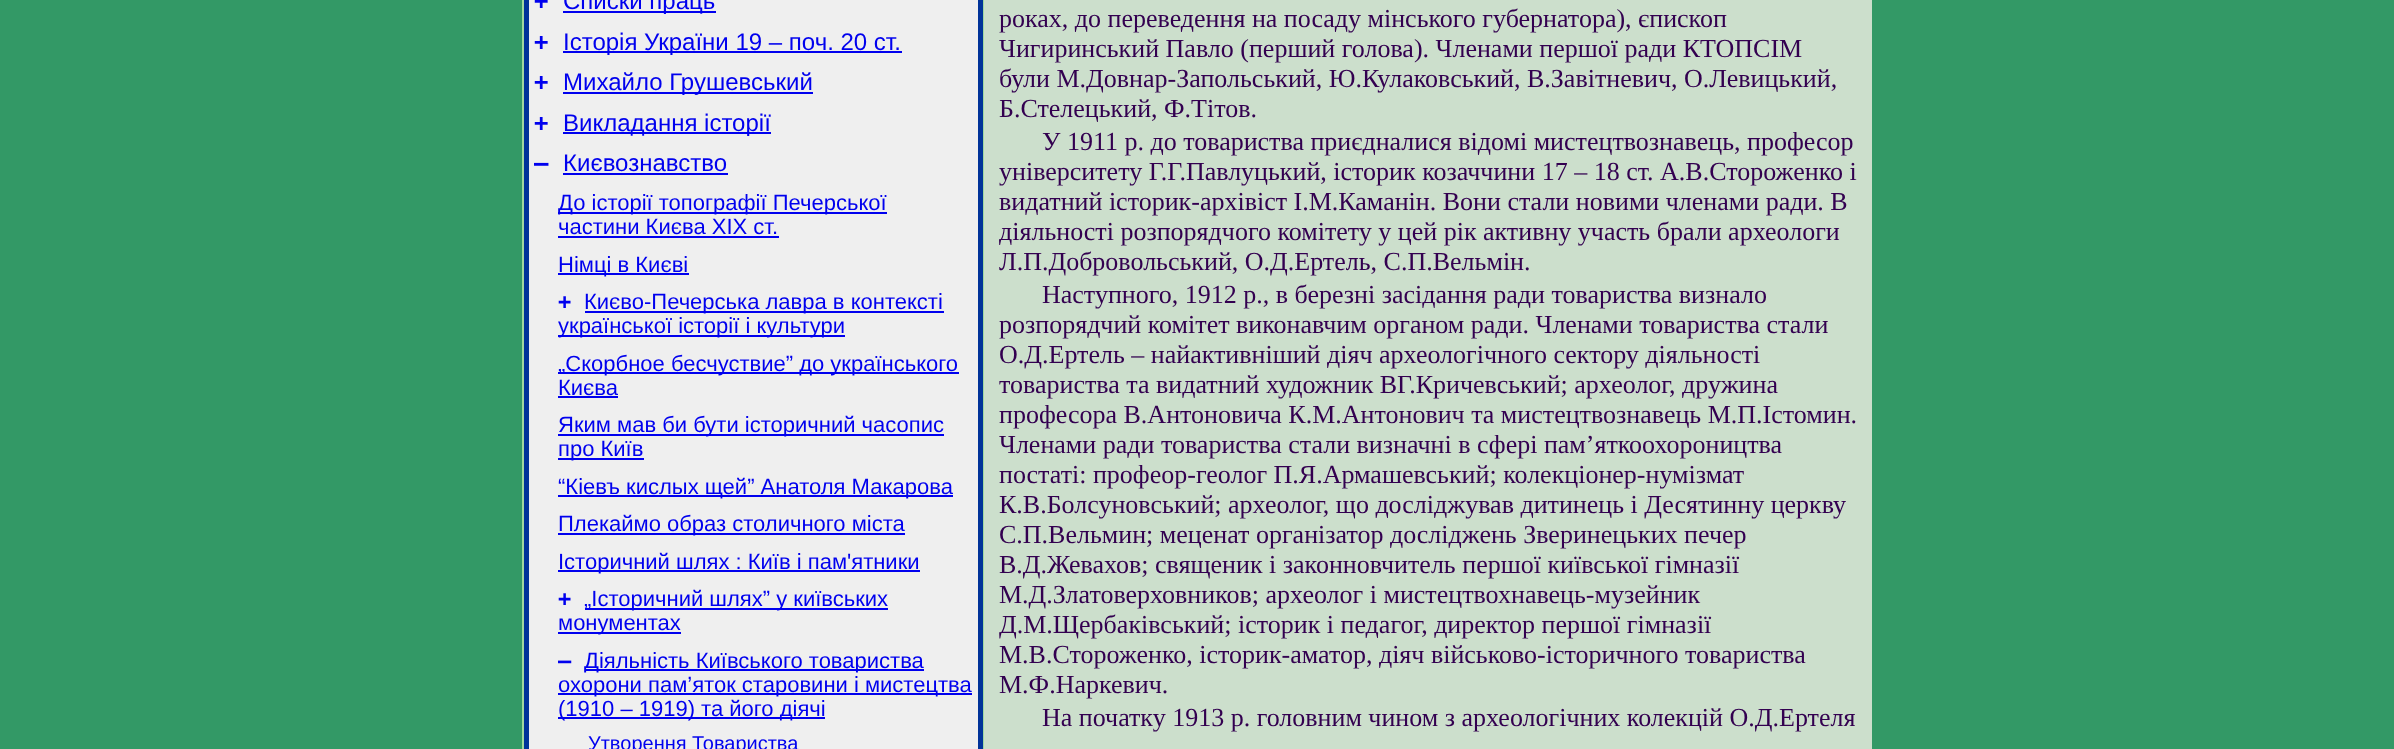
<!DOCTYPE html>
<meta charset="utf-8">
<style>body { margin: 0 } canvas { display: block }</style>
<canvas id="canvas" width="2394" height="749"></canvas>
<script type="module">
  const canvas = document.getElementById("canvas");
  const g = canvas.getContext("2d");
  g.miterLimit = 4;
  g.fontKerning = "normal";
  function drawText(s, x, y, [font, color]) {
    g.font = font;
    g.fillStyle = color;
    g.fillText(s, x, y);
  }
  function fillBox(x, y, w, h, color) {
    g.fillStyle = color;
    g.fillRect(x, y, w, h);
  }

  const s1 = ["bold 24px DejaVu Sans Mono", "#0000EE"];
  const s2 = ["24px Liberation Sans", "#0000EE"];
  const s3 = ["22px Liberation Sans", "#0000EE"];
  const s4 = ["bold 22px DejaVu Sans Mono", "#0000EE"];
  const s5 = ["20px Liberation Sans", "#0000EE"];
  const s6 = ["26px Liberation Serif", "#330050"];

  fillBox(0, 0, 2394, 749, "#339966");
  fillBox(522, 0, 462, 749, "#A1D89F");
  g.fillStyle = "#EFEFEF";
  g.beginPath();
  g.rect(526.5, -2.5, 454, 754);
  g.fill();
  g.strokeStyle = "#003399";
  g.lineWidth = 5;
  g.stroke();
  drawText("+", 534, 9, s1);
  fillBox(563, 11, 153, 2, "#0000EE");
  drawText("Списки праць", 563, 9, s2);
  drawText("+", 534, 50, s1);
  fillBox(563, 51, 339, 2, "#0000EE");
  drawText("Історія України 19 – поч. 20 ст.", 563, 50, s2);
  drawText("+", 534, 90, s1);
  fillBox(563, 92, 250, 2, "#0000EE");
  drawText("Михайло Грушевський", 563, 90, s2);
  drawText("+", 534, 131, s1);
  fillBox(563, 132, 208, 2, "#0000EE");
  drawText("Викладання історії", 563, 131, s2);
  drawText("–", 534, 171, s1);
  drawText("Києвознавство", 563, 171, s2);
  fillBox(563, 173, 165, 2, "#0000EE");
  fillBox(558, 212, 329, 2, "#0000EE");
  drawText("До історії топографії Печерської", 558, 210, s3);
  drawText("частини Києва ХІХ ст.", 558, 234, s3);
  fillBox(558, 236, 221, 2, "#0000EE");
  fillBox(558, 273, 131, 2, "#0000EE");
  drawText("Німці в Києві", 558, 272, s3);
  drawText("+", 558, 309, s4);
  fillBox(585, 311, 359, 2, "#0000EE");
  drawText("Києво-Печерська лавра в контексті", 584, 309, s3);
  fillBox(558, 335, 287, 2, "#0000EE");
  drawText("української історії і культури", 558, 333, s3);
  fillBox(558, 372, 401, 2, "#0000EE");
  drawText("„Скорбное бесчуствие” до українського", 558, 371, s3);
  drawText("Києва", 558, 395, s3);
  fillBox(558, 396, 60, 2, "#0000EE");
  fillBox(558, 434, 386, 2, "#0000EE");
  drawText("Яким мав би бути історичний часопис", 558, 432, s3);
  fillBox(558, 458, 86, 2, "#0000EE");
  drawText("про Київ", 558, 456, s3);
  fillBox(558, 495, 395, 2, "#0000EE");
  drawText("“Кіевъ кислых щей” Анатоля Макарова", 558, 494, s3);
  fillBox(558, 533, 347, 2, "#0000EE");
  drawText("Плекаймо образ столичного міста", 558, 531, s3);
  fillBox(558, 570, 362, 2, "#0000EE");
  drawText("Історичний шлях : Київ і пам'ятники", 558, 569, s3);
  drawText("+", 558, 606, s4);
  fillBox(585, 608, 303, 2, "#0000EE");
  drawText("„Історичний шлях” у київських", 584, 606, s3);
  fillBox(558, 632, 123, 2, "#0000EE");
  drawText("монументах", 558, 630, s3);
  drawText("–", 558, 668, s4);
  fillBox(585, 669, 339, 2, "#0000EE");
  drawText("Діяльність Київського товариства", 584, 668, s3);
  fillBox(558, 693, 414, 2, "#0000EE");
  drawText("охорони пам’яток старовини і мистецтва", 558, 692, s3);
  fillBox(558, 717, 267, 2, "#0000EE");
  drawText("(1910 – 1919) та його діячі", 558, 716, s3);
  drawText("Утворення Товариства", 588, 750, s5);
  fillBox(984, 0, 888, 749, "#CCDFCC");
  drawText("роках, до переведення на посаду мінського губернатора), єпископ", 999, 27, s6);
  drawText("Чигиринський Павло (перший голова). Членами першої ради КТОПСІМ", 999, 57, s6);
  drawText("були М.Довнар-Запольський, Ю.Кулаковський, В.Завітневич, О.Левицький,", 999, 87, s6);
  drawText("Б.Стелецький, Ф.Тітов.", 999, 117, s6);
  drawText("У 1911 р. до товариства приєдналися відомі мистецтвознавець, професор", 1042, 150, s6);
  drawText("університету Г.Г.Павлуцький, історик козаччини 17 – 18 ст. А.В.Стороженко і", 999, 180, s6);
  drawText("видатний історик-архівіст І.М.Каманін. Вони стали новими членами ради. В", 999, 210, s6);
  drawText("діяльності розпорядчого комітету у цей рік активну участь брали археологи", 999, 240, s6);
  drawText("Л.П.Добровольський, О.Д.Ертель, С.П.Вельмін.", 999, 270, s6);
  drawText("Наступного, 1912 р., в березні засідання ради товариства визнало", 1042, 303, s6);
  drawText("розпорядчий комітет виконавчим органом ради. Членами товариства стали", 999, 333, s6);
  drawText("О.Д.Ертель – найактивніший діяч археологічного сектору діяльності", 999, 363, s6);
  drawText("товариства та видатний художник ВГ.Кричевський; археолог, дружина", 999, 393, s6);
  drawText("професора В.Антоновича К.М.Антонович та мистецтвознавець М.П.Істомин.", 999, 423, s6);
  drawText("Членами ради товариства стали визначні в сфері пам’яткоохороництва", 999, 453, s6);
  drawText("постаті: профеор-геолог П.Я.Армашевський; колекціонер-нумізмат", 999, 483, s6);
  drawText("К.В.Болсуновський; археолог, що досліджував дитинець і Десятинну церкву", 999, 513, s6);
  drawText("С.П.Вельмин; меценат організатор досліджень Зверинецьких печер", 999, 543, s6);
  drawText("В.Д.Жевахов; священик і законновчитель першої київської гімназії", 999, 573, s6);
  drawText("М.Д.Златоверховников; археолог і мистецтвохнавець-музейник", 999, 603, s6);
  drawText("Д.М.Щербаківський; історик і педагог, директор першої гімназії", 999, 633, s6);
  drawText("М.В.Стороженко, історик-аматор, діяч військово-історичного товариства", 999, 663, s6);
  drawText("М.Ф.Наркевич.", 999, 693, s6);
  drawText("На початку 1913 р. головним чином з археологічних колекцій О.Д.Ертеля", 1042, 726, s6);
</script>
